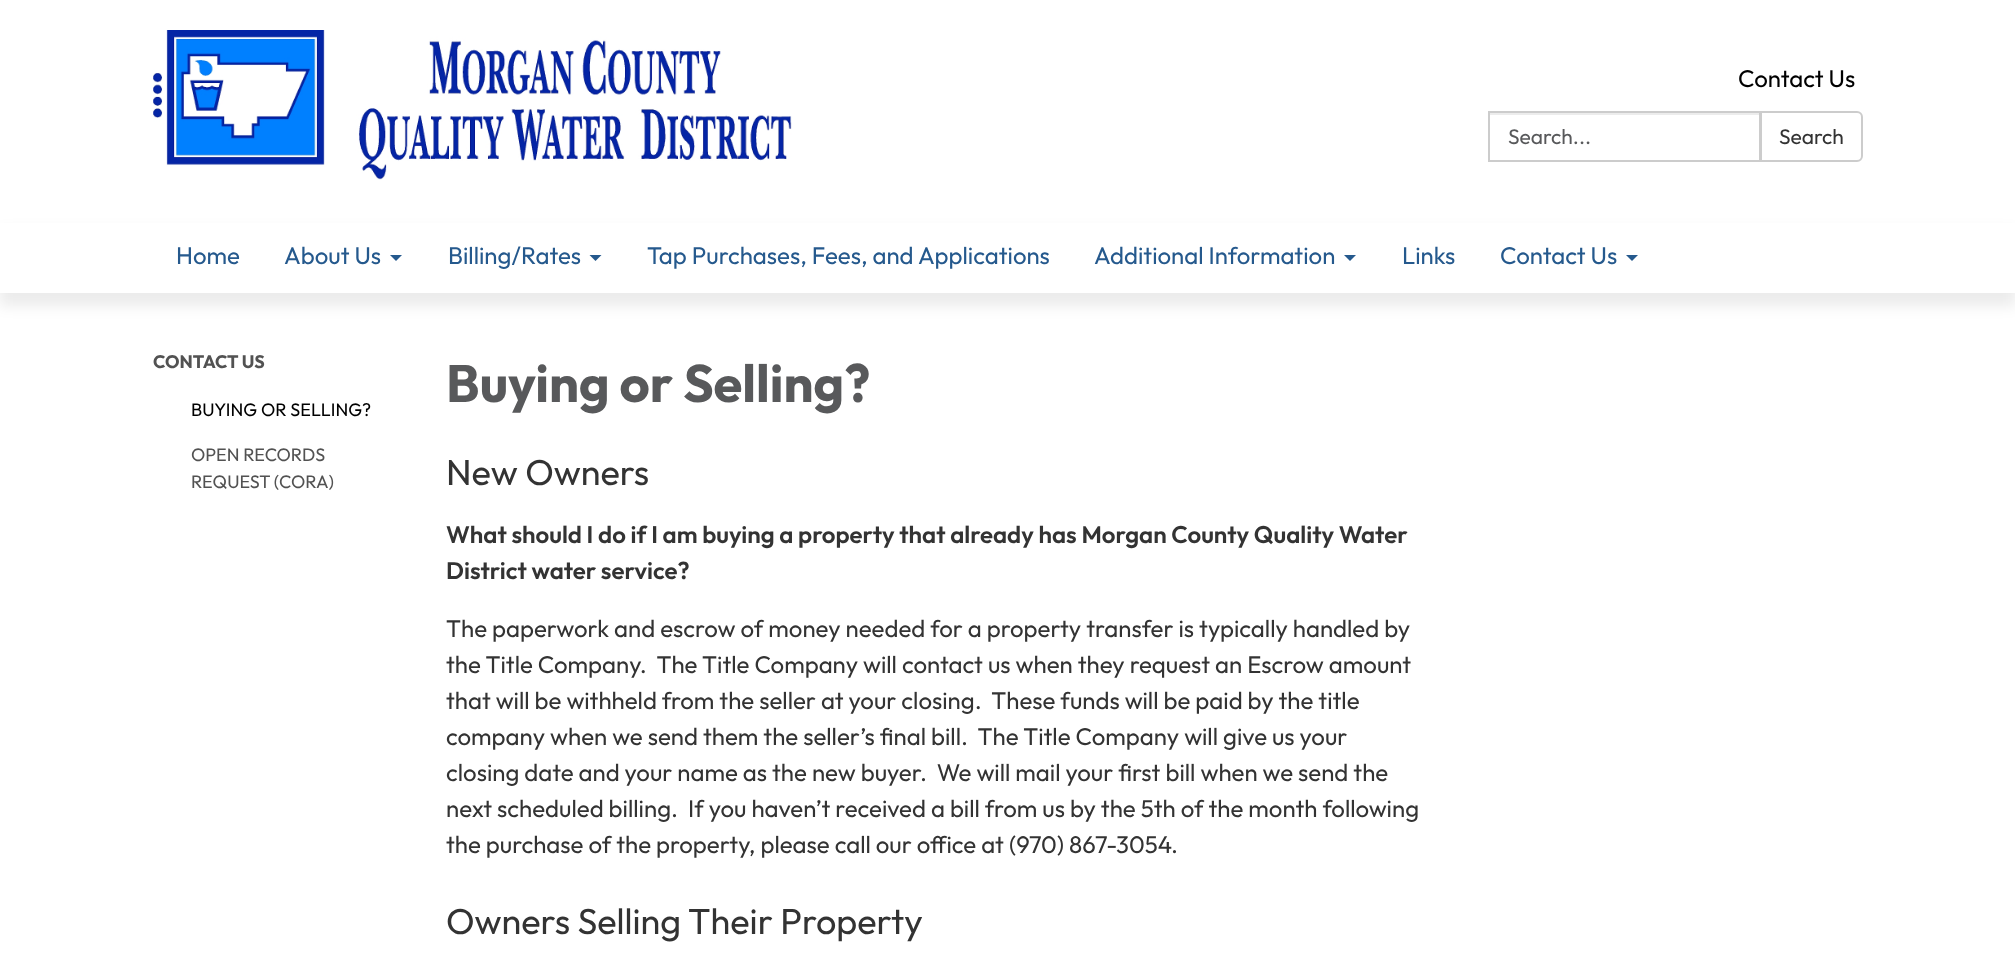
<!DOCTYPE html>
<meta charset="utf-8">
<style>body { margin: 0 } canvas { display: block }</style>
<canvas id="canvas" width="2015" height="955"></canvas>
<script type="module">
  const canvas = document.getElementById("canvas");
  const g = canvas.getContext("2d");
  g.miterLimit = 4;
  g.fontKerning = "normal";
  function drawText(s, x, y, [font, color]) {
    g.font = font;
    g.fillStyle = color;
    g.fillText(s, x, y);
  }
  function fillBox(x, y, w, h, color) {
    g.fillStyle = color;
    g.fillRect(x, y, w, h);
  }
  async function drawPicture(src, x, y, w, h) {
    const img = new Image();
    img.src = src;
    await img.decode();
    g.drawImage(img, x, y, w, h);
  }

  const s1 = ["24px Outfit", "#000000"];
  const s2 = ["21px Outfit", "#58595B"];
  const s3 = ["21px Outfit", "#333333"];
  const s4 = ["24px Outfit", "#25598D"];
  const s5 = ["bold 18px Outfit", "#525252"];
  const s6 = ["18px Outfit", "#000000"];
  const s7 = ["18px Outfit", "#525252"];
  const s8 = ["bold 52.5px Outfit", "#58595B"];
  const s9 = ["36px Outfit", "#333333"];
  const s10 = ["600 24px Outfit", "#333333"];
  const s11 = ["24px Outfit", "#333333"];

  fillBox(0, 0, 2015, 955, "#FFFFFF");
  await drawPicture("pic1.png", 153, 30, 639, 150);
  drawText("Contact Us", 1738, 87, s1);
  fillBox(1490, 113, 270, 2, "#ECECEC");
  g.strokeStyle = "#CCCCCC";
  g.lineWidth = 2;
  g.strokeRect(1489, 112, 271, 49);
  drawText("Search...", 1508, 144, s2);
  g.fillStyle = "#FFFFFF";
  g.beginPath();
  g.roundRect(1761, 112, 101, 49, [0, 5, 5, 0]);
  g.fill();
  g.stroke();
  drawText("Search", 1779, 144, s3);
  g.fillStyle = "rgba(0, 0, 0, 0.08)";
  g.filter = "blur(7px)";
  g.beginPath();
  g.rect(0, 231, 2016, 75);
  g.fill();
  g.filter = "none";
  fillBox(0, 223, 2015, 70, "#FFFFFF");
  drawText("Home", 176, 264, s4);
  drawText("About Us", 284, 264, s4);
  g.beginPath();
  g.moveTo(390, 255);
  g.lineTo(402, 255);
  g.lineTo(396, 261);
  g.closePath();
  g.fill();
  drawText("Billing/Rates", 448, 264, s4);
  g.beginPath();
  g.moveTo(589.5, 255);
  g.lineTo(601.5, 255);
  g.lineTo(595.5, 261);
  g.closePath();
  g.fill();
  drawText("Tap Purchases, Fees, and Applications", 647, 264, s4);
  drawText("Additional Information", 1094, 264, s4);
  g.beginPath();
  g.moveTo(1344, 255);
  g.lineTo(1356, 255);
  g.lineTo(1350, 261);
  g.closePath();
  g.fill();
  drawText("Links", 1402, 264, s4);
  drawText("Contact Us", 1500, 264, s4);
  g.beginPath();
  g.moveTo(1626, 255);
  g.lineTo(1638, 255);
  g.lineTo(1632, 261);
  g.closePath();
  g.fill();
  drawText("CONTACT US", 153, 368, s5);
  drawText("BUYING OR SELLING?", 191, 416, s6);
  drawText("OPEN RECORDS", 191, 461, s7);
  drawText("REQUEST (CORA)", 191, 488, s7);
  drawText("Buying or Selling?", 446, 402, s8);
  drawText("New Owners", 446, 485, s9);
  drawText("What should I do if I am buying a property that already has Morgan County Quality Water", 446, 543, s10);
  drawText("District water service?", 446, 579, s10);
  drawText("The paperwork and escrow of money needed for a property transfer is typically handled by", 446, 637, s11);
  drawText("the Title Company.  The Title Company will contact us when they request an Escrow amount", 446, 673, s11);
  drawText("that will be withheld from the seller at your closing.  These funds will be paid by the title", 446, 709, s11);
  drawText("company when we send them the seller’s final bill.  The Title Company will give us your", 446, 745, s11);
  drawText("closing date and your name as the new buyer.  We will mail your first bill when we send the", 446, 781, s11);
  drawText("next scheduled billing.  If you haven’t received a bill from us by the 5th of the month following", 446, 817, s11);
  drawText("the purchase of the property, please call our office at (970) 867-3054.", 446, 853, s11);
  drawText("Owners Selling Their Property", 446, 934, s9);
</script>
